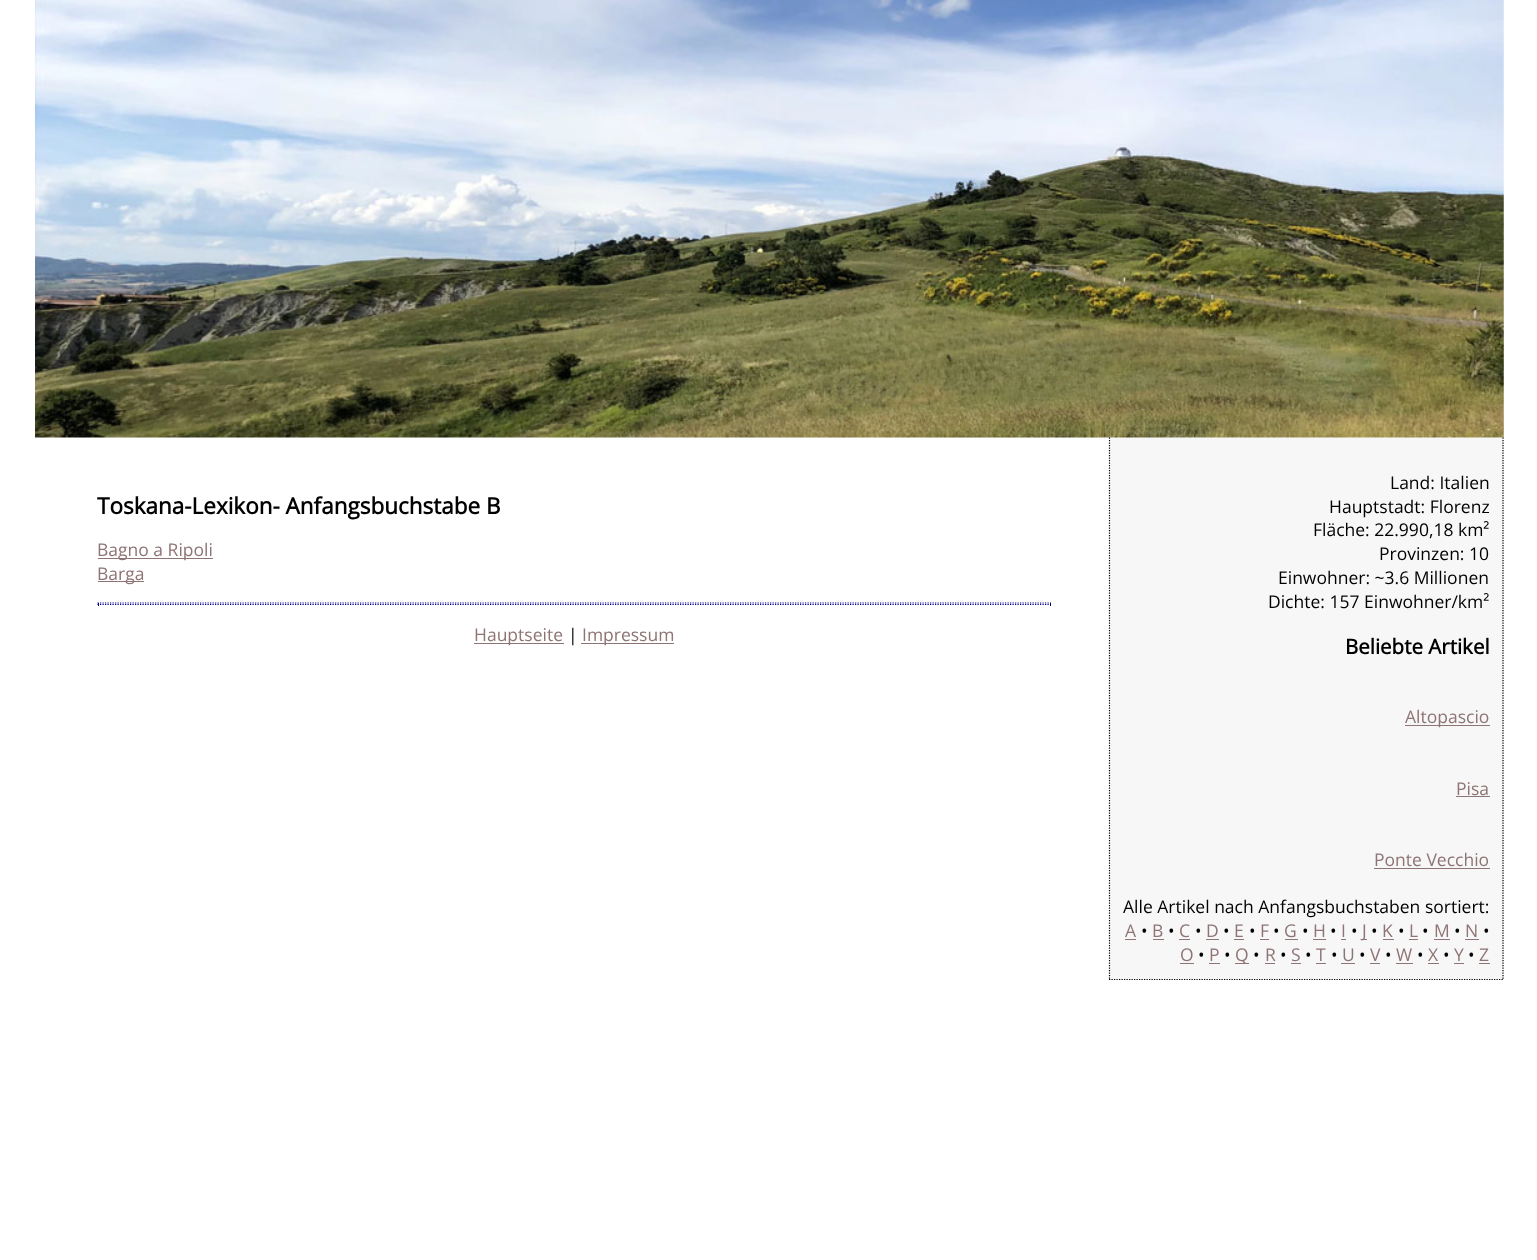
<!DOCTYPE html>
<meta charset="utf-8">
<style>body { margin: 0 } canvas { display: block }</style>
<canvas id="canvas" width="1537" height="1260"></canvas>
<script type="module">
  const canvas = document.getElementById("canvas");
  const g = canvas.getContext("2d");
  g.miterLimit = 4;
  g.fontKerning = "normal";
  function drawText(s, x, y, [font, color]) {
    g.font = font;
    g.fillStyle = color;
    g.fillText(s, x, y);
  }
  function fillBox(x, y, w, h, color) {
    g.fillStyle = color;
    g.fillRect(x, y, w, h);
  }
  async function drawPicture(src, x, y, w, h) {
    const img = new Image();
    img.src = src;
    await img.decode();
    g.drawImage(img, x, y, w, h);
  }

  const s1 = ["bold 22.5px Open Sans", "#000000"];
  const s2 = ["17.5px Open Sans", "#8E7474"];
  const s3 = ["17.5px Open Sans", "#000000"];
  const s4 = ["bold 20.5px Open Sans", "#000000"];

  fillBox(0, 0, 1537, 1260, "#FFFFFF");
  await drawPicture("pic1.png", 35, 0, 1469, 438);
  drawText("Toskana-Lexikon- Anfangsbuchstabe B", 97, 514, s1);
  fillBox(98, 558, 115, 1, "#8E7474");
  drawText("Bagno a Ripoli", 97, 556, s2);
  fillBox(98, 581, 46, 1, "#8E7474");
  drawText("Barga", 97, 580, s2);
  g.beginPath();
  g.moveTo(97.5, 603);
  g.lineTo(1051, 603);
  g.strokeStyle = "#00008B";
  g.lineWidth = 1.2;
  g.setLineDash([1.25, 1.25]);
  g.stroke();
  fillBox(1050, 603, 1, 3, "#00008B");
  g.beginPath();
  g.moveTo(97.5, 604.5);
  g.lineTo(1051, 604.5);
  g.stroke();
  fillBox(98, 603, 1, 3, "#00008B");
  fillBox(474, 643, 90, 1, "#8E7474");
  drawText("Hauptseite", 474, 641, s2);
  drawText("|", 568, 641, s3);
  fillBox(581, 643, 93, 1, "#8E7474");
  drawText("Impressum", 582, 641, s2);
  fillBox(1109, 438, 395, 542, "#F7F7F7");
  g.beginPath();
  g.moveTo(1503, 437.5);
  g.lineTo(1503, 980);
  g.strokeStyle = "#000000";
  g.stroke();
  g.beginPath();
  g.moveTo(1109, 979.5);
  g.lineTo(1504, 979.5);
  g.stroke();
  g.beginPath();
  g.moveTo(1109.5, 437.5);
  g.lineTo(1109.5, 980);
  g.stroke();
  drawText("Land: Italien", 1390, 489, s3);
  drawText("Hauptstadt: Florenz", 1329, 513, s3);
  drawText("Fläche: 22.990,18 km²", 1313, 536, s3);
  drawText("Provinzen: 10", 1379, 560, s3);
  drawText("Einwohner: ~3.6 Millionen", 1278, 584, s3);
  drawText("Dichte: 157 Einwohner/km²", 1268, 608, s3);
  drawText("Beliebte Artikel", 1345, 654, s4);
  fillBox(1405, 725, 85, 1, "#8E7474");
  drawText("Altopascio", 1405, 723, s2);
  drawText("Pisa", 1456, 795, s2);
  fillBox(1456, 796, 34, 1, "#8E7474");
  drawText("Ponte Vecchio", 1374, 866, s2);
  fillBox(1374, 868, 116, 1, "#8E7474");
  drawText("Alle Artikel nach Anfangsbuchstaben sortiert:", 1123, 913, s3);
  drawText("A", 1125, 937, s2);
  fillBox(1125, 939, 11, 1, "#8E7474");
  drawText("•", 1141, 937, s3);
  drawText("B", 1152, 937, s2);
  fillBox(1153, 939, 11, 1, "#8E7474");
  drawText("•", 1168, 937, s3);
  drawText("C", 1179, 937, s2);
  fillBox(1179, 939, 11, 1, "#8E7474");
  drawText("•", 1195, 937, s3);
  drawText("D", 1206, 937, s2);
  fillBox(1206, 939, 13, 1, "#8E7474");
  drawText("•", 1223, 937, s3);
  drawText("E", 1234, 937, s2);
  fillBox(1234, 939, 10, 1, "#8E7474");
  drawText("•", 1249, 937, s3);
  drawText("F", 1260, 937, s2);
  fillBox(1260, 939, 9, 1, "#8E7474");
  drawText("•", 1273, 937, s3);
  drawText("G", 1284, 937, s2);
  fillBox(1285, 939, 13, 1, "#8E7474");
  drawText("•", 1302, 937, s3);
  drawText("H", 1313, 937, s2);
  fillBox(1313, 939, 13, 1, "#8E7474");
  drawText("•", 1330, 937, s3);
  drawText("I", 1341, 937, s2);
  fillBox(1341, 939, 5, 1, "#8E7474");
  drawText("•", 1351, 937, s3);
  fillBox(1363, 939, 4, 1, "#8E7474");
  drawText("J", 1362, 937, s2);
  drawText("•", 1371, 937, s3);
  drawText("K", 1382, 937, s2);
  fillBox(1383, 939, 11, 1, "#8E7474");
  drawText("•", 1398, 937, s3);
  drawText("L", 1409, 937, s2);
  fillBox(1409, 939, 9, 1, "#8E7474");
  drawText("•", 1422, 937, s3);
  drawText("M", 1434, 937, s2);
  fillBox(1434, 939, 16, 1, "#8E7474");
  drawText("•", 1454, 937, s3);
  drawText("N", 1465, 937, s2);
  fillBox(1465, 939, 14, 1, "#8E7474");
  drawText("•", 1483, 937, s3);
  drawText("O", 1180, 961, s2);
  fillBox(1180, 963, 14, 1, "#8E7474");
  drawText("•", 1198, 961, s3);
  drawText("P", 1209, 961, s2);
  fillBox(1209, 963, 11, 1, "#8E7474");
  drawText("•", 1224, 961, s3);
  fillBox(1235, 963, 14, 1, "#8E7474");
  drawText("Q", 1235, 961, s2);
  drawText("•", 1253, 961, s3);
  drawText("R", 1265, 961, s2);
  fillBox(1265, 963, 10, 1, "#8E7474");
  drawText("•", 1280, 961, s3);
  drawText("S", 1291, 961, s2);
  fillBox(1291, 963, 10, 1, "#8E7474");
  drawText("•", 1305, 961, s3);
  drawText("T", 1316, 961, s2);
  fillBox(1316, 963, 10, 1, "#8E7474");
  drawText("•", 1331, 961, s3);
  drawText("U", 1342, 961, s2);
  fillBox(1341, 963, 14, 1, "#8E7474");
  drawText("•", 1359, 961, s3);
  drawText("V", 1370, 961, s2);
  fillBox(1370, 963, 10, 1, "#8E7474");
  drawText("•", 1385, 961, s3);
  drawText("W", 1396, 961, s2);
  fillBox(1396, 963, 17, 1, "#8E7474");
  drawText("•", 1417, 961, s3);
  drawText("X", 1428, 961, s2);
  fillBox(1428, 963, 11, 1, "#8E7474");
  drawText("•", 1443, 961, s3);
  drawText("Y", 1454, 961, s2);
  fillBox(1454, 963, 10, 1, "#8E7474");
  drawText("•", 1468, 961, s3);
  drawText("Z", 1479, 961, s2);
  fillBox(1479, 963, 11, 1, "#8E7474");
</script>
